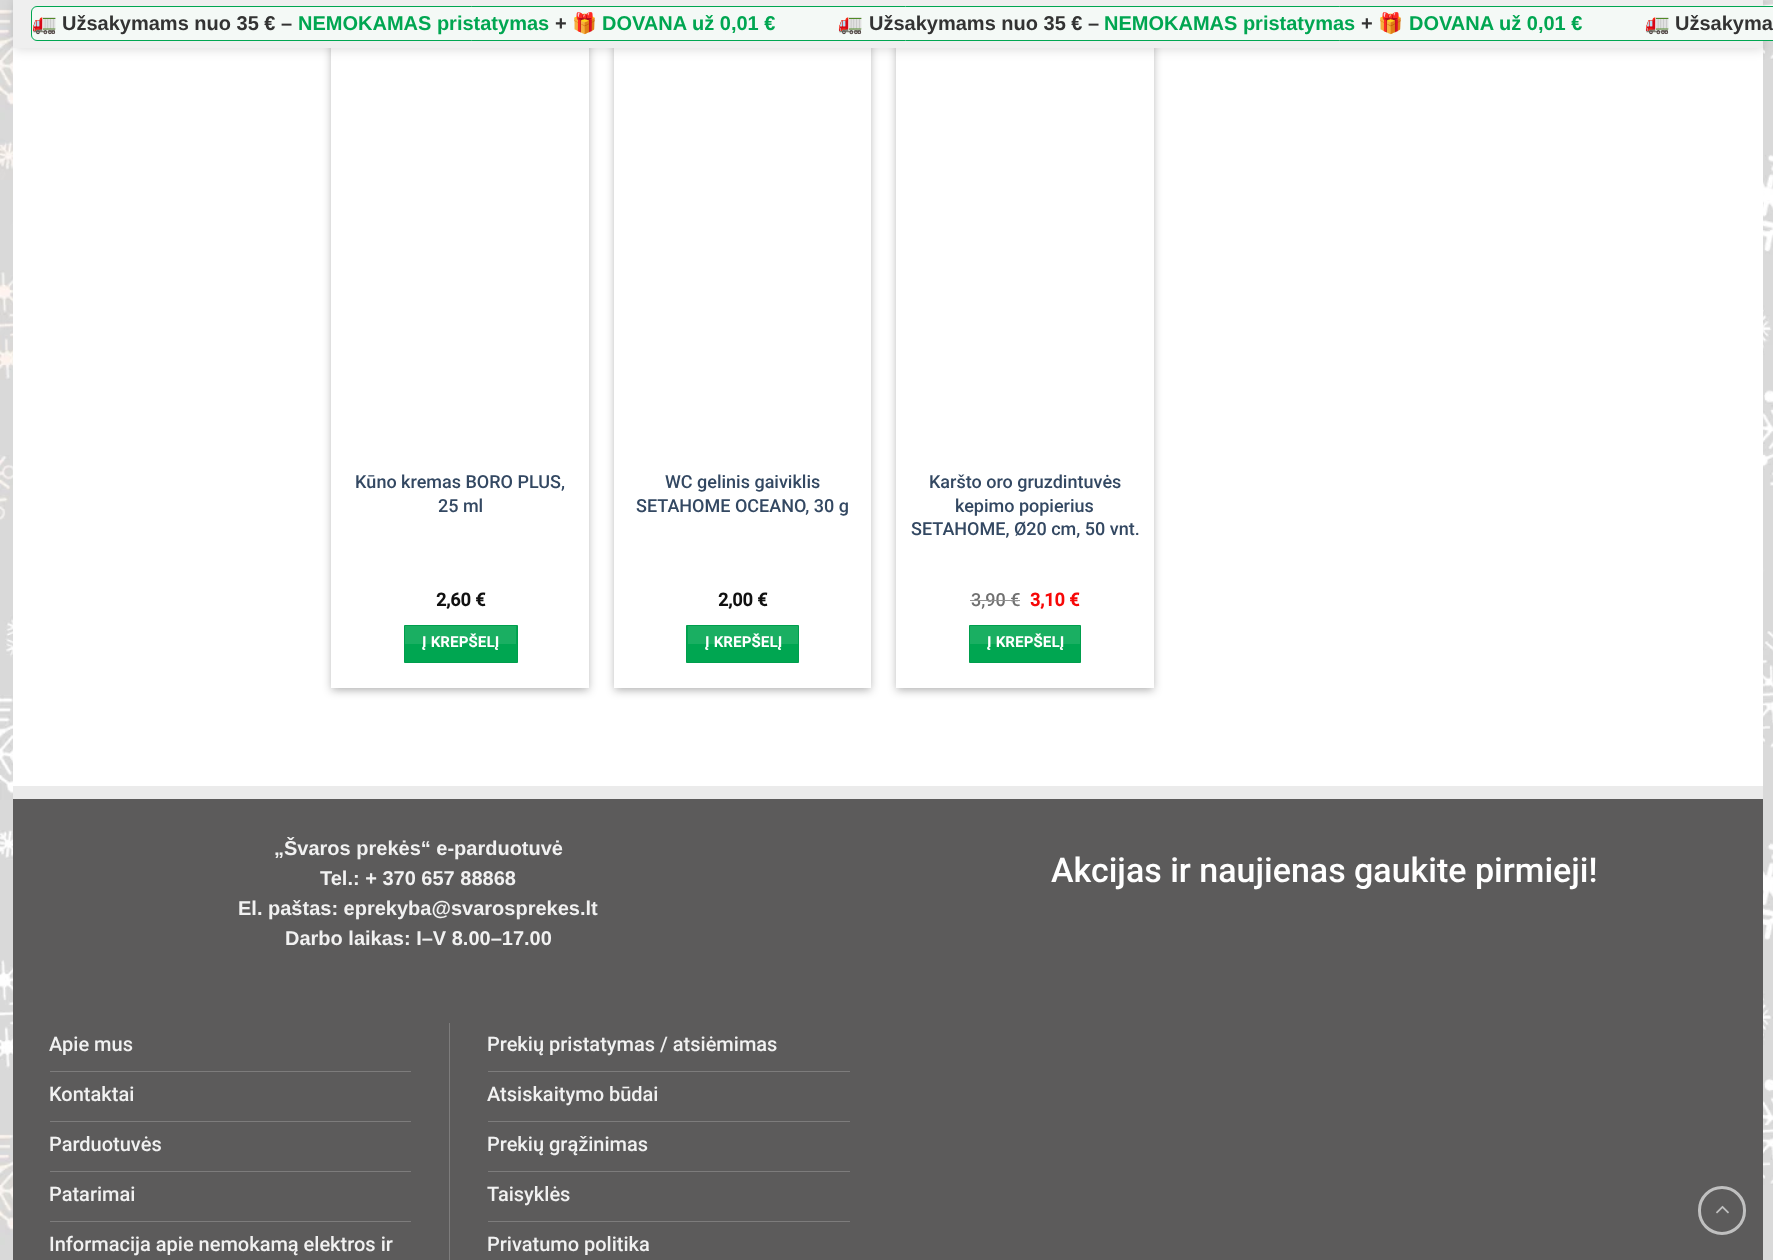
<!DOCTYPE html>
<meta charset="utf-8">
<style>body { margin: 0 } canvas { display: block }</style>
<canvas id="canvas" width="1773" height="1260"></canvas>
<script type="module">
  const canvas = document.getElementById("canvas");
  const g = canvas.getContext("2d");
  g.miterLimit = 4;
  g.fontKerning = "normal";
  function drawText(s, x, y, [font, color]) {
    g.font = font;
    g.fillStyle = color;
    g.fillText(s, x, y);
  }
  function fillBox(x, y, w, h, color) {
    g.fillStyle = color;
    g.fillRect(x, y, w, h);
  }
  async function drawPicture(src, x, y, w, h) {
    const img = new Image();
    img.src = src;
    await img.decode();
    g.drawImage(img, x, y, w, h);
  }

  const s1 = ["bold 20px Noto Color Emoji", "#333333"];
  const s2 = ["bold 20px Liberation Sans", "#333333"];
  const s3 = ["bold 20px Liberation Sans", "#00A651"];
  const s4 = ["500 18px Roboto", "#334862"];
  const s5 = ["bold 18px Roboto", "#111111"];
  const s6 = ["bold 14.5px Roboto", "#FFFFFF"];
  const s7 = ["500 18px Roboto", "#707070"];
  const s8 = ["bold 18px Roboto", "#F70707"];
  const s9 = ["bold 20px Liberation Sans", "#F1F1F1"];
  const s10 = ["500 20px Roboto", "#F1F1F1"];
  const s11 = ["500 34px Roboto", "#FFFFFF"];

  fillBox(0, 0, 1773, 1260, "#FFFFFF");
  await drawPicture("pic1.png", 0, 0, 1773, 1260);
  fillBox(13, 48, 1750, 738, "#FFFFFF");
  g.fillStyle = "rgba(0, 0, 0, 0.23)";
  g.filter = "blur(4px)";
  g.beginPath();
  g.rect(331, -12, 258, 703);
  g.fill();
  g.filter = "none";
  g.fillStyle = "rgba(0, 0, 0, 0.16)";
  g.filter = "blur(4px)";
  g.beginPath();
  g.rect(336, -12, 248, 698);
  g.fill();
  g.filter = "none";
  fillBox(331, 48, 258, 640, "#FFFFFF");
  g.fillStyle = "rgba(0, 0, 0, 0.23)";
  g.filter = "blur(4px)";
  g.beginPath();
  g.rect(614, -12, 257, 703);
  g.fill();
  g.filter = "none";
  g.fillStyle = "rgba(0, 0, 0, 0.16)";
  g.filter = "blur(4px)";
  g.beginPath();
  g.rect(619, -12, 247, 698);
  g.fill();
  g.filter = "none";
  fillBox(614, 48, 257, 640, "#FFFFFF");
  g.fillStyle = "rgba(0, 0, 0, 0.23)";
  g.filter = "blur(4px)";
  g.beginPath();
  g.rect(896, -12, 258, 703);
  g.fill();
  g.filter = "none";
  g.fillStyle = "rgba(0, 0, 0, 0.16)";
  g.filter = "blur(4px)";
  g.beginPath();
  g.rect(901, -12, 248, 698);
  g.fill();
  g.filter = "none";
  fillBox(896, 48, 258, 640, "#FFFFFF");
  g.fillStyle = "rgba(0, 0, 0, 0.15)";
  g.filter = "blur(6px)";
  g.beginPath();
  g.rect(14, 1, 1750, 48);
  g.fill();
  g.filter = "none";
  fillBox(13, 0, 1750, 48, "#EFEFEF");
  g.fillStyle = "#F4F9F6";
  g.beginPath();
  g.roundRect(31.5, 6.5, 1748, 34, 5.5);
  g.fill();
  g.strokeStyle = "#00A651";
  g.stroke();
  g.save();
  g.beginPath();
  g.roundRect(33, 8, 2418, 32, 5);
  g.clip();
  drawText("🚛", 32, 30, s1);
  g.restore();
  drawText("Užsakymams nuo 35 € –", 62, 30, s2);
  drawText("NEMOKAMAS pristatymas", 298, 30, s3);
  drawText("+", 555, 30, s2);
  drawText("🎁", 572, 30, s1);
  drawText("DOVANA už 0,01 €", 602, 30, s3);
  drawText("🚛", 838, 30, s1);
  drawText("Užsakymams nuo 35 € –", 869, 30, s2);
  drawText("NEMOKAMAS pristatymas", 1104, 30, s3);
  drawText("+", 1361, 30, s2);
  drawText("🎁", 1378, 30, s1);
  drawText("DOVANA už 0,01 €", 1409, 30, s3);
  drawText("🚛", 1645, 30, s1);
  drawText("Užsakyma", 1675, 30, s2);
  drawText("Kūno kremas BORO PLUS,", 355, 488, s4);
  drawText("25 ml", 438, 512, s4);
  drawText("2,60 €", 436, 606, s5);
  g.fillStyle = "#00A651";
  g.beginPath();
  g.rect(404.5, 625.5, 113, 37);
  g.fill();
  g.strokeStyle = "#009E4D";
  g.stroke();
  fillBox(405, 626, 111, 18, "rgba(255, 255, 255, 0.1)");
  g.letterSpacing = "0.5px";
  drawText("Į KREPŠELĮ", 422, 647, s6);
  g.letterSpacing = "0px";
  drawText("WC gelinis gaiviklis", 665, 488, s4);
  drawText("SETAHOME OCEANO, 30 g", 636, 512, s4);
  drawText("2,00 €", 718, 606, s5);
  g.fillStyle = "#00A651";
  g.beginPath();
  g.rect(686.5, 625.5, 112, 37);
  g.fill();
  g.stroke();
  fillBox(688, 626, 110, 18, "rgba(255, 255, 255, 0.1)");
  g.letterSpacing = "0.5px";
  drawText("Į KREPŠELĮ", 705, 647, s6);
  g.letterSpacing = "0px";
  drawText("Karšto oro gruzdintuvės", 929, 488, s4);
  drawText("kepimo popierius", 955, 512, s4);
  drawText("SETAHOME, Ø20 cm, 50 vnt.", 911, 535, s4);
  drawText("3,90 €", 971, 606, s7);
  fillBox(970, 600, 50, 1, "#929292");
  drawText("3,10 €", 1030, 606, s8);
  g.fillStyle = "#00A651";
  g.beginPath();
  g.rect(969.5, 625.5, 111, 37);
  g.fill();
  g.stroke();
  fillBox(970, 626, 110, 18, "rgba(255, 255, 255, 0.1)");
  g.letterSpacing = "0.5px";
  drawText("Į KREPŠELĮ", 987, 647, s6);
  fillBox(13, 786, 1750, 13, "#EBEBEB");
  fillBox(13, 799, 1750, 461, "#5C5B5B");
  g.letterSpacing = "0px";
  drawText("„Švaros prekės“ e-parduotuvė", 274, 855, s9);
  drawText("Tel.: + 370 657 88868", 320, 885, s9);
  drawText("El. paštas: eprekyba@svarosprekes.lt", 238, 915, s9);
  drawText("Darbo laikas: I–V 8.00–17.00", 285, 945, s9);
  fillBox(449, 1023, 1, 237, "#7D7C7C");
  fillBox(50, 1071, 361, 1, "#7D7C7C");
  drawText("Apie mus", 49, 1051, s10);
  fillBox(50, 1121, 361, 1, "#7D7C7C");
  drawText("Kontaktai", 49, 1101, s10);
  fillBox(50, 1171, 361, 1, "#7D7C7C");
  drawText("Parduotuvės", 49, 1151, s10);
  fillBox(50, 1221, 361, 1, "#7D7C7C");
  drawText("Patarimai", 49, 1201, s10);
  drawText("Informacija apie nemokamą elektros ir", 49, 1251, s10);
  fillBox(488, 1071, 362, 1, "#7D7C7C");
  drawText("Prekių pristatymas / atsiėmimas", 487, 1051, s10);
  fillBox(488, 1121, 362, 1, "#7D7C7C");
  drawText("Atsiskaitymo būdai", 487, 1101, s10);
  fillBox(488, 1171, 362, 1, "#7D7C7C");
  drawText("Prekių grąžinimas", 487, 1151, s10);
  fillBox(488, 1221, 362, 1, "#7D7C7C");
  drawText("Taisyklės", 487, 1201, s10);
  drawText("Privatumo politika", 487, 1251, s10);
  drawText("Akcijas ir naujienas gaukite pirmieji!", 1051, 882, s11);
  g.beginPath();
  g.roundRect(1699.5, 1187.5, 45, 46, 22.5);
  g.strokeStyle = "#C0C0C0";
  g.lineWidth = 3;
  g.stroke();
  await drawPicture("pic2.png", 1716, 1205, 13, 9);
</script>
